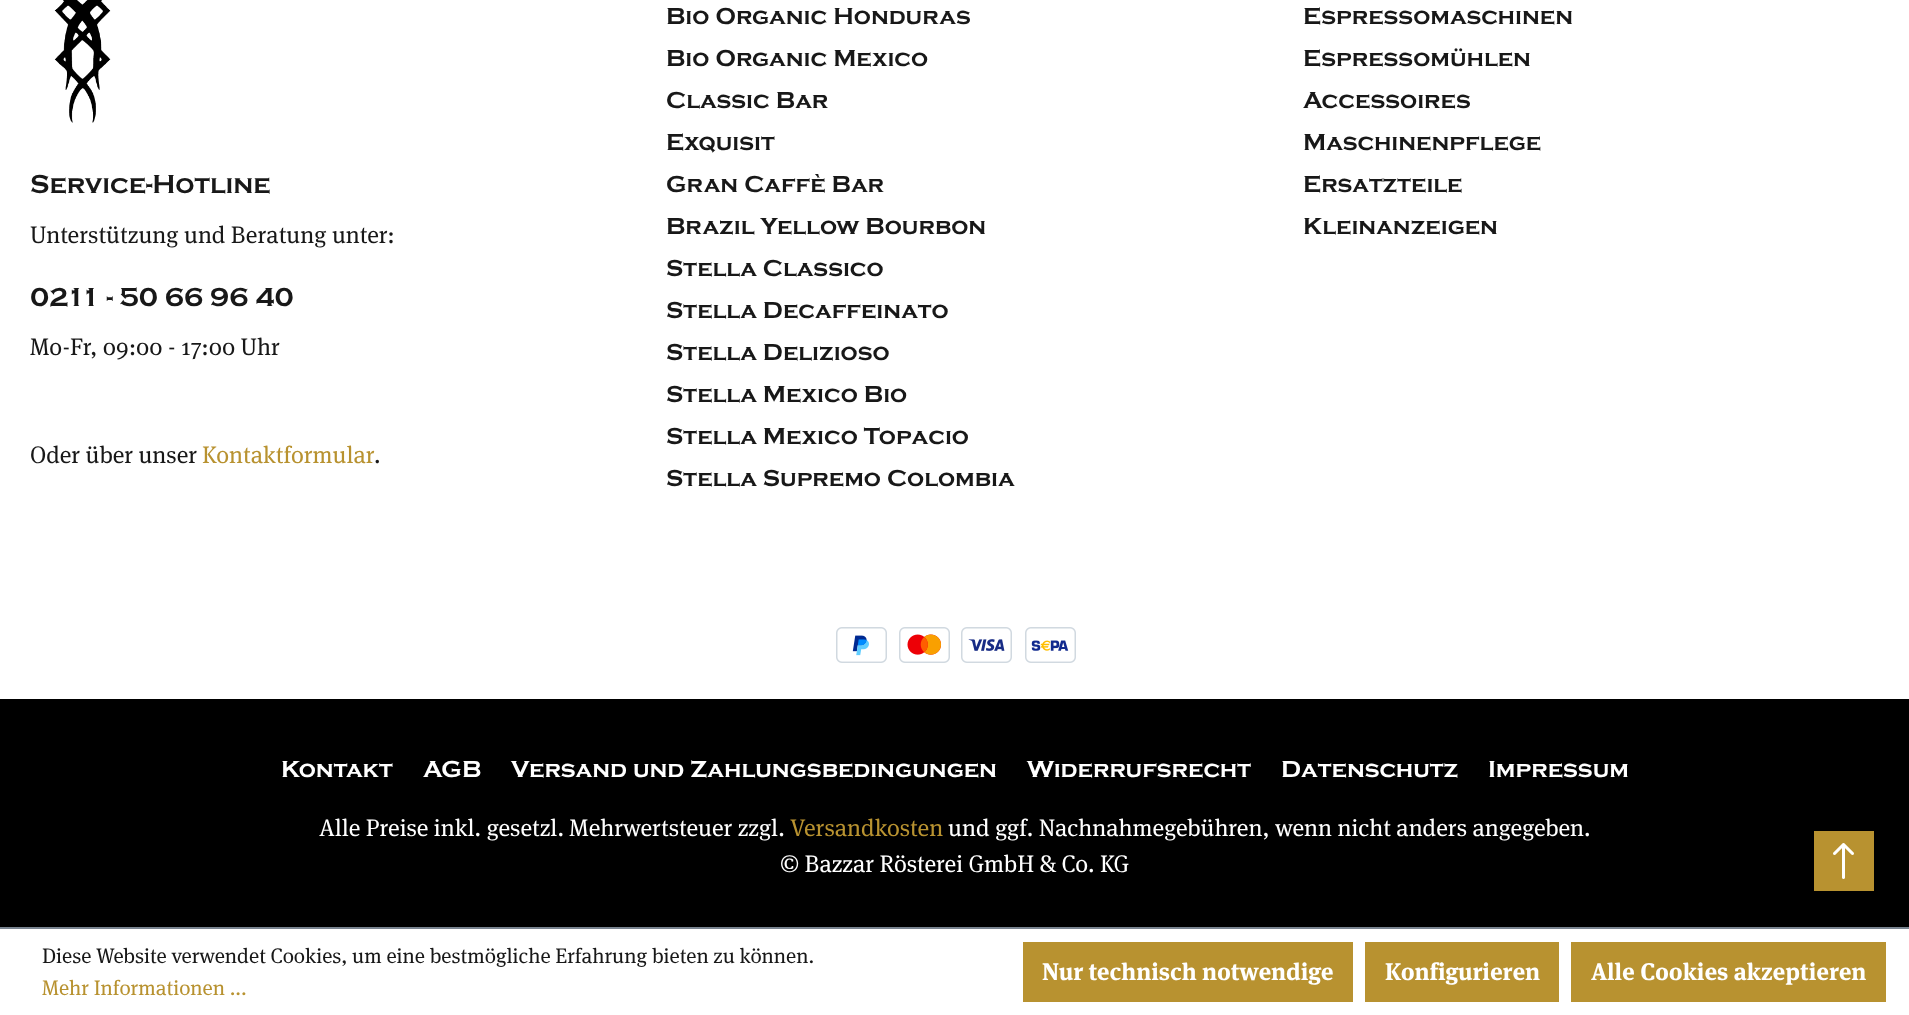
<!DOCTYPE html>
<meta charset="utf-8">
<style>body { margin: 0 } canvas { display: block }</style>
<canvas id="canvas" width="1909" height="1015"></canvas>
<script type="module">
  const canvas = document.getElementById("canvas");
  const g = canvas.getContext("2d");
  g.miterLimit = 4;
  g.fontKerning = "normal";
  function drawText(s, x, y, [font, color]) {
    g.font = font;
    g.fillStyle = color;
    g.fillText(s, x, y);
  }
  function fillBox(x, y, w, h, color) {
    g.fillStyle = color;
    g.fillRect(x, y, w, h);
  }
  async function drawPicture(src, x, y, w, h) {
    const img = new Image();
    img.src = src;
    await img.decode();
    g.drawImage(img, x, y, w, h);
  }

  const s1 = ["bold 24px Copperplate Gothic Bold", "#181818"];
  const s2 = ["bold 27px Copperplate Gothic Bold", "#181818"];
  const s3 = ["24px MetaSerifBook", "#181818"];
  const s4 = ["24px MetaSerifBook", "#B89230"];
  const s5 = ["bold 24px Copperplate Gothic Bold", "#FFFFFF"];
  const s6 = ["24px MetaSerifBook", "#FFFFFF"];
  const s7 = ["21px MetaSerifBook", "#181818"];
  const s8 = ["21px MetaSerifBook", "#B89230"];
  const s9 = ["bold 24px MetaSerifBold", "#FFFFFF"];

  fillBox(0, 0, 1909, 1015, "#FFFFFF");
  drawText("Bio Organic Honduras", 666, 24, s1);
  drawText("Bio Organic Mexico", 666, 66, s1);
  drawText("Classic Bar", 666, 108, s1);
  drawText("Exquisit", 666, 150, s1);
  drawText("Gran Caffè Bar", 666, 192, s1);
  drawText("Brazil Yellow Bourbon", 666, 234, s1);
  drawText("Stella Classico", 666, 276, s1);
  drawText("Stella Decaffeinato", 666, 318, s1);
  drawText("Stella Delizioso", 666, 360, s1);
  drawText("Stella Mexico Bio", 666, 402, s1);
  drawText("Stella Mexico Topacio", 666, 444, s1);
  drawText("Stella Supremo Colombia", 666, 486, s1);
  drawText("Espressomaschinen", 1303, 24, s1);
  drawText("Espressomühlen", 1303, 66, s1);
  drawText("Accessoires", 1303, 108, s1);
  drawText("Maschinenpflege", 1303, 150, s1);
  drawText("Ersatzteile", 1303, 192, s1);
  drawText("Kleinanzeigen", 1303, 234, s1);
  await drawPicture("pic1.png", 54, 0, 57, 123);
  drawText("Service-Hotline", 30, 193, s2);
  drawText("Unterstützung und Beratung unter:", 30, 243, s3);
  drawText("0211 - 50 66 96 40", 30, 306, s2);
  drawText("Mo-Fr, 09:00 - 17:00 Uhr", 30, 355, s3);
  drawText("Oder über unser", 30, 463, s3);
  drawText("Kontaktformular", 202, 463, s4);
  drawText(".", 374, 463, s3);
  await drawPicture("pic2.png", 836, 627, 51, 36);
  await drawPicture("pic3.png", 899, 627, 113, 36);
  await drawPicture("pic4.png", 1025, 627, 51, 36);
  fillBox(0, 699, 1909, 228, "#000000");
  drawText("Kontakt", 281, 777, s5);
  drawText("AGB", 423, 777, s5);
  drawText("Versand und Zahlungsbedingungen", 511, 777, s5);
  drawText("Widerrufsrecht", 1027, 777, s5);
  drawText("Datenschutz", 1281, 777, s5);
  drawText("Impressum", 1488, 777, s5);
  drawText("Alle Preise inkl. gesetzl. Mehrwertsteuer zzgl.", 319, 836, s6);
  drawText("Versandkosten", 790, 836, s4);
  drawText("und ggf. Nachnahmegebühren, wenn nicht anders angegeben.", 948, 836, s6);
  drawText("© Bazzar Rösterei GmbH & Co. KG", 780, 872, s6);
  fillBox(1814, 831, 60, 60, "#B89230");
  await drawPicture("pic5.png", 1833, 843, 21, 36);
  fillBox(0, 927, 1909, 2, "#798490");
  drawText("Diese Website verwendet Cookies, um eine bestmögliche Erfahrung bieten zu können.", 42, 963, s7);
  drawText("Mehr Informationen ...", 42, 995, s8);
  fillBox(1023, 942, 330, 60, "#B89230");
  drawText("Nur technisch notwendige", 1042, 980, s9);
  fillBox(1365, 942, 194, 60, "#B89230");
  drawText("Konfigurieren", 1385, 980, s9);
  fillBox(1571, 942, 315, 60, "#B89230");
  drawText("Alle Cookies akzeptieren", 1591, 980, s9);
</script>
